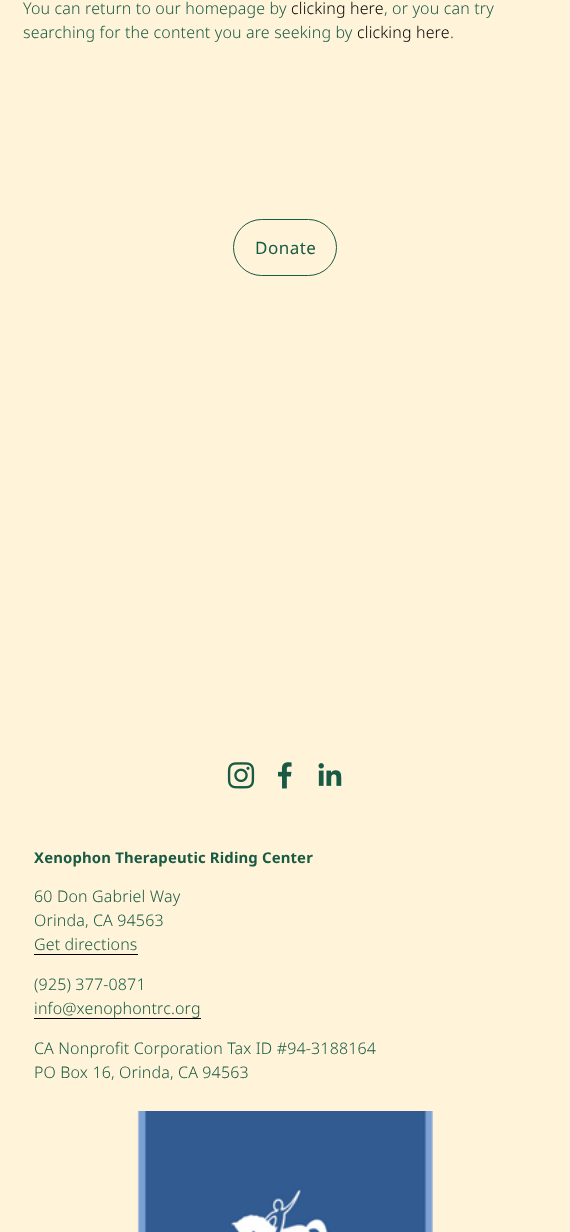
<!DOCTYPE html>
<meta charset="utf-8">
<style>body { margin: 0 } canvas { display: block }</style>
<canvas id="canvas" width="570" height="1232"></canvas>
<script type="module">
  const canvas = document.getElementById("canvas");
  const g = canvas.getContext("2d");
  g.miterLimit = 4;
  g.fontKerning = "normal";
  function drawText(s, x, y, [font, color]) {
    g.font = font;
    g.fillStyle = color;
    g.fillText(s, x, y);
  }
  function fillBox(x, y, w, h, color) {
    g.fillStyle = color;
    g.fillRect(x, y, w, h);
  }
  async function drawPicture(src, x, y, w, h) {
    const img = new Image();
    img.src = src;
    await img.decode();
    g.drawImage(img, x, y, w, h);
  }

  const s1 = ["300 16px Noto Sans", "#185A43"];
  const s2 = ["300 16px Noto Sans", "#000000"];
  const s3 = ["17px Noto Sans", "#185A43"];
  const s4 = ["bold 14.9px Noto Sans", "#185A43"];

  fillBox(0, 0, 570, 1232, "#FFF4D9");
  g.letterSpacing = "0.15px";
  drawText("You can return to our homepage by", 23, 14, s1);
  drawText("clicking here", 291, 14, s2);
  drawText(", or you can try", 384, 14, s1);
  drawText("searching for the content you are seeking by", 23, 38, s1);
  drawText("clicking here", 357, 38, s2);
  drawText(".", 450, 38, s1);
  g.beginPath();
  g.roundRect(233.5, 219.5, 103, 56, 28);
  g.strokeStyle = "#185A43";
  g.stroke();
  g.letterSpacing = "0.5px";
  drawText("Donate", 255, 254, s3);
  await drawPicture("pic1.png", 227, 762, 28, 27);
  await drawPicture("pic2.png", 278, 762, 14, 27);
  await drawPicture("pic3.png", 318, 763, 24, 23);
  g.letterSpacing = "0.15px";
  drawText("Xenophon Therapeutic Riding Center", 34, 863, s4);
  drawText("60 Don Gabriel Way", 34, 902, s1);
  drawText("Orinda, CA 94563", 34, 926, s1);
  drawText("Get directions", 34, 950, s1);
  fillBox(34, 954, 104, 1, "#000000");
  drawText("(925) 377-0871", 34, 990, s1);
  drawText("info@xenophontrc.org", 34, 1014, s1);
  fillBox(34, 1018, 167, 1, "#000000");
  drawText("CA Nonprofit Corporation Tax ID #94-3188164", 34, 1054, s1);
  drawText("PO Box 16, Orinda, CA 94563", 34, 1078, s1);
  await drawPicture("pic4.png", 137, 1111, 296, 121);
</script>
